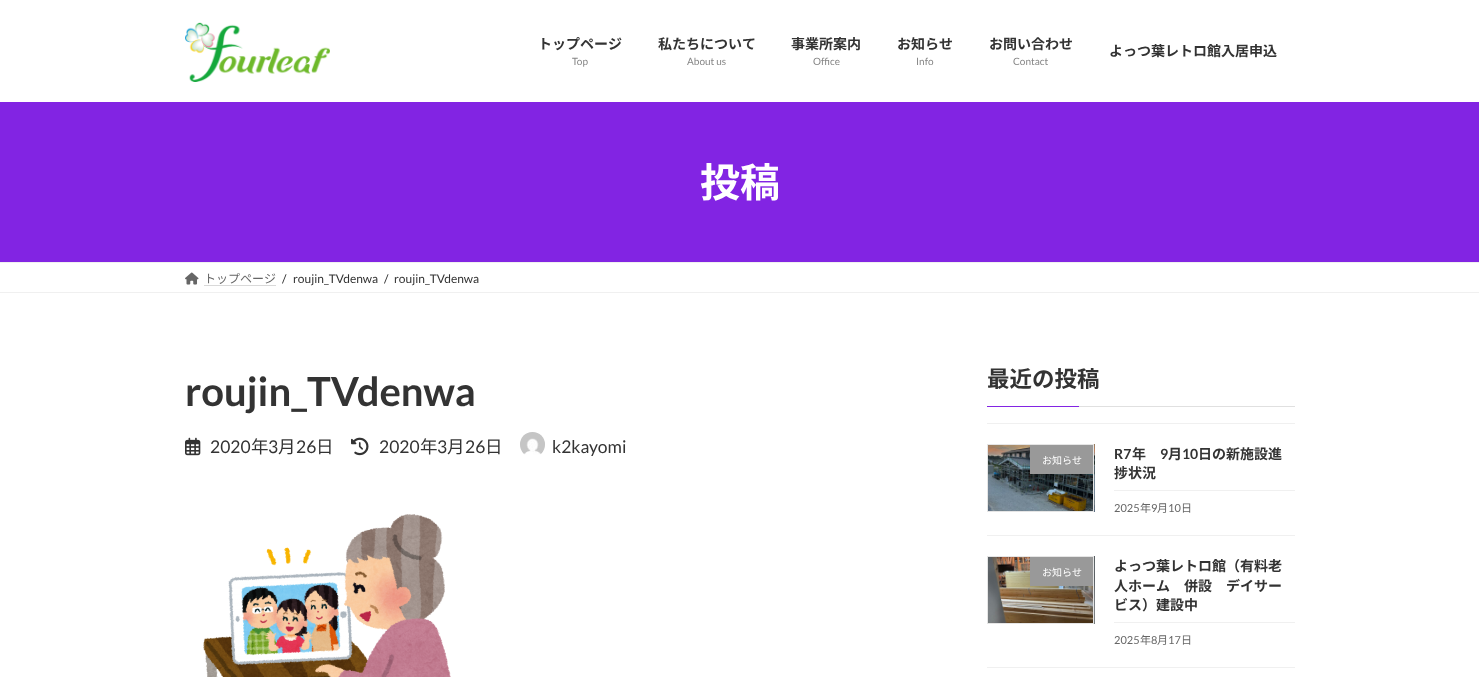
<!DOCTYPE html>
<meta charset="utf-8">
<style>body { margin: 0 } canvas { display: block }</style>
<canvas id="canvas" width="1479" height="677"></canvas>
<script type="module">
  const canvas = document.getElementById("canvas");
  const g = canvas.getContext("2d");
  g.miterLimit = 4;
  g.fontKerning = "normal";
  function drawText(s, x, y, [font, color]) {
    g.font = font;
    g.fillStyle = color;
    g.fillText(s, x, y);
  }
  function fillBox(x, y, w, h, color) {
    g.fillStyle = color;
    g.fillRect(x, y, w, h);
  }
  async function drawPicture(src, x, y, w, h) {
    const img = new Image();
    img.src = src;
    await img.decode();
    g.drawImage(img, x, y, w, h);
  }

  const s1 = ["bold 14px Noto Sans JP", "#333333"];
  const s2 = ["10px Lato", "#858585"];
  const s3 = ["bold 40px Noto Sans JP", "#FFFFFF"];
  const s4 = ["12px Noto Sans JP", "#666666"];
  const s5 = ["12px Lato", "#333333"];
  const s6 = ["bold 40px Lato", "#333333"];
  const s7 = ["17.5px Lato", "#333333"];
  const s8 = ["17.5px Noto Sans JP", "#333333"];
  const s9 = ["bold 22.5px Noto Sans JP", "#333333"];
  const s10 = ["10px Noto Sans JP", "#FFFFFF"];
  const s11 = ["bold 14px Lato", "#333333"];
  const s12 = ["11px Lato", "#666666"];
  const s13 = ["11px Noto Sans JP", "#666666"];

  fillBox(0, 0, 1479, 677, "#FFFFFF");
  await drawPicture("pic1.png", 185, 22, 145, 60);
  drawText("トップページ", 538, 49, s1);
  drawText("Top", 572, 65, s2);
  drawText("私たちについて", 658, 49, s1);
  drawText("About us", 687, 65, s2);
  drawText("事業所案内", 791, 49, s1);
  drawText("Office", 813, 65, s2);
  drawText("お知らせ", 897, 49, s1);
  drawText("Info", 916, 65, s2);
  drawText("お問い合わせ", 989, 49, s1);
  drawText("Contact", 1013, 65, s2);
  drawText("よっつ葉レトロ館入居申込", 1109, 56, s1);
  fillBox(0, 102, 1479, 160, "#8224E3");
  drawText("投稿", 700, 197, s3);
  fillBox(0, 262, 1479, 1, "#F0F0F0");
  fillBox(0, 292, 1479, 1, "#F0F0F0");
  await drawPicture("pic2.png", 185, 272, 14, 13);
  drawText("トップページ", 204, 283, s4);
  g.beginPath();
  g.moveTo(204.5, 285.5);
  g.lineTo(276, 285.5);
  g.strokeStyle = "#B3B3B3";
  g.setLineDash([1, 1]);
  g.stroke();
  drawText("/", 282, 283, s5);
  drawText("roujin_TVdenwa", 293, 283, s5);
  drawText("/", 384, 283, s5);
  drawText("roujin_TVdenwa", 394, 283, s5);
  drawText("roujin_TVdenwa", 185, 406, s6);
  await drawPicture("pic3.png", 185, 437, 16, 19);
  drawText("2020", 210, 453, s7);
  drawText("年", 251, 453, s8);
  drawText("3", 268, 453, s7);
  drawText("月", 278, 453, s8);
  drawText("26", 296, 453, s7);
  drawText("日", 316, 453, s8);
  await drawPicture("pic4.png", 351, 437, 18, 19);
  drawText("2020", 379, 453, s7);
  drawText("年", 420, 453, s8);
  drawText("3", 437, 453, s7);
  drawText("月", 447, 453, s8);
  drawText("26", 465, 453, s7);
  drawText("日", 485, 453, s8);
  await drawPicture("pic5.png", 520, 432, 25, 23);
  drawText("k2kayomi", 552, 453, s7);
  await drawPicture("pic6.png", 203, 514, 248, 163);
  fillBox(1079, 406, 216, 1, "#E0E0E0");
  drawText("最近の投稿", 987, 387, s9);
  fillBox(987, 406, 92, 1, "#8224E3");
  fillBox(987, 423, 308, 1, "#F0F0F0");
  fillBox(987, 535, 308, 1, "#F0F0F0");
  await drawPicture("pic7.png", 988, 444, 107, 68);
  g.strokeStyle = "#E5E5E5";
  g.setLineDash([]);
  g.strokeRect(987.5, 444.5, 106, 67);
  fillBox(1030, 445, 63, 29, "#999999");
  drawText("お知らせ", 1042, 464, s10);
  fillBox(1114, 490, 181, 1, "#F0F0F0");
  drawText("R7", 1114, 459, s11);
  drawText("年", 1132, 459, s1);
  drawText("9", 1160, 459, s11);
  drawText("月", 1168, 459, s1);
  drawText("10", 1182, 459, s11);
  drawText("日の新施設進", 1198, 459, s1);
  drawText("捗状況", 1114, 478, s1);
  drawText("2025", 1114, 512, s12);
  drawText("年", 1140, 512, s13);
  drawText("9", 1151, 512, s12);
  drawText("月", 1157, 512, s13);
  drawText("10", 1168, 512, s12);
  drawText("日", 1181, 512, s13);
  fillBox(987, 667, 308, 1, "#F0F0F0");
  await drawPicture("pic8.png", 988, 556, 107, 68);
  g.strokeRect(987.5, 556.5, 106, 67);
  fillBox(1030, 557, 63, 29, "#999999");
  drawText("お知らせ", 1042, 576, s10);
  fillBox(1114, 622, 181, 1, "#F0F0F0");
  drawText("よっつ葉レトロ館（有料老", 1114, 571, s1);
  drawText("人ホーム　併設　デイサー", 1114, 591, s1);
  drawText("ビス）建設中", 1114, 610, s1);
  drawText("2025", 1114, 644, s12);
  drawText("年", 1140, 644, s13);
  drawText("8", 1151, 644, s12);
  drawText("月", 1157, 644, s13);
  drawText("17", 1168, 644, s12);
  drawText("日", 1181, 644, s13);
</script>
